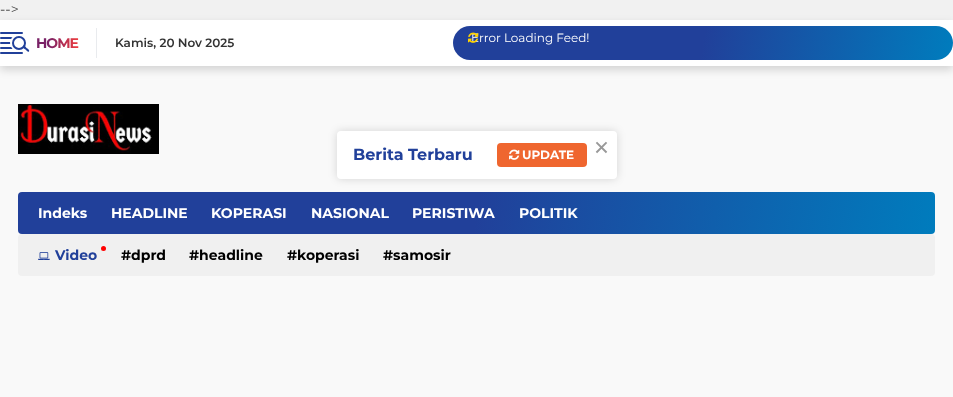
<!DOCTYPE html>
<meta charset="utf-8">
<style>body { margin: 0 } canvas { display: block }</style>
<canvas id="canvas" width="953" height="397"></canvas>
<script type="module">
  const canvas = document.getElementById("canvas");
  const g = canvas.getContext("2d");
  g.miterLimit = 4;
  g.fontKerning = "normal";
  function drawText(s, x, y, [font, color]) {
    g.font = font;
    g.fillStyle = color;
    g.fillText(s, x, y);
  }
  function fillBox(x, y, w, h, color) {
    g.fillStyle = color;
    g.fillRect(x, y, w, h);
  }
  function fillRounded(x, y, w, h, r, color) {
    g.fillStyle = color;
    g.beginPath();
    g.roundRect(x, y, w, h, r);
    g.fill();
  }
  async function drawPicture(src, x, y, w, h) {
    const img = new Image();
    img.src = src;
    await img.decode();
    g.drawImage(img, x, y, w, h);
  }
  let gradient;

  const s1 = ["14px Montserrat", "#333333"];
  const s2 = ["600 12px Montserrat", "#333333"];
  const s3 = ["12px Montserrat", "#FFFFFF"];
  const s4 = ["bold 16px Montserrat", "#21409A"];
  const s5 = ["bold 12px Montserrat", "#FFFFFF"];
  const s6 = ["33px Montserrat", "#999999"];
  const s7 = ["bold 14px Montserrat", "#FFFFFF"];
  const s8 = ["bold 14px Montserrat", "#21409A"];
  const s9 = ["bold 14px Montserrat", "#000000"];

  fillBox(0, 0, 953, 397, "#F1F1F1");
  drawText("-->", 0, 14, s1);
  fillBox(0, 66, 953, 331, "#F9F9F9");
  g.fillStyle = "rgba(0, 0, 0, 0.15)";
  g.filter = "blur(4px)";
  g.beginPath();
  g.rect(0, 24, 953, 46);
  g.fill();
  g.filter = "none";
  fillBox(0, 20, 953, 46, "#FFFFFF");
  fillRounded(0, 32, 23, 2, 1, "#21409A");
  fillRounded(0, 37, 23, 2, 1, "#21409A");
  fillRounded(0, 42, 23, 2, 1, "#21409A");
  fillRounded(0, 47, 23, 2, 1, "#21409A");
  g.fillStyle = "#FFFFFF";
  g.beginPath();
  g.arc(18, 43, 8, 0, Math.PI * 2);
  g.fill();
  g.beginPath();
  g.arc(19, 43, 6, 0, Math.PI * 2);
  g.strokeStyle = "#21409A";
  g.lineWidth = 2;
  g.stroke();
  g.fillStyle = "#21409A";
  g.beginPath();
  g.moveTo(23, 46);
  g.bezierCurveTo(24, 44.5, 26, 47.5, 26.5, 48);
  g.bezierCurveTo(27.5, 48.5, 30, 50, 29, 51.5);
  g.bezierCurveTo(28, 52.5, 26, 50, 25.5, 49.5);
  g.bezierCurveTo(24.5, 49, 22, 47, 23, 46);
  g.closePath();
  g.fill();
  fillRounded(0, 52, 23, 2, 1, "#21409A");
  fillBox(96, 28, 1, 30, "#E9EBEE");
  g.letterSpacing = "-1px";
  g.font = "bold 14px Montserrat";
  gradient = g.createLinearGradient(36, 43, 78, 43);
  gradient.addColorStop(0.3, "#792166");
  gradient.addColorStop(1, "#ED3C3F");
  g.fillStyle = gradient;
  g.fillText("HOME", 36, 48);
  g.letterSpacing = "0px";
  drawText("Kamis, 20 Nov 2025", 115, 47, s2);
  gradient = g.createLinearGradient(458, -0.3, 948, 86);
  gradient.addColorStop(0.5, "#21409A");
  gradient.addColorStop(1, "#007CBD");
  g.fillStyle = gradient;
  g.beginPath();
  g.roundRect(453, 26, 500, 34, 17);
  g.fill();
  drawText("Error Loading Feed!", 471, 42, s3);
  await drawPicture("pic1.png", 468, 32, 11, 11);
  await drawPicture("pic2.png", 18, 104, 141, 50);
  g.fillStyle = "rgba(0, 0, 0, 0.15)";
  g.filter = "blur(4px)";
  g.beginPath();
  g.roundRect(337, 131, 280, 48, 4);
  g.fill();
  g.filter = "none";
  fillRounded(337, 131, 280, 48, 4, "#FFFFFF");
  drawText("Berita Terbaru", 353, 160, s4);
  fillRounded(497, 143, 90, 24, 4, "#EF662F");
  await drawPicture("pic3.png", 509, 149, 11, 11);
  drawText("UPDATE", 522, 159, s5);
  drawText("×", 592, 159, s6);
  gradient = g.createLinearGradient(28, 134, 925, 292);
  gradient.addColorStop(0.5, "#21409A");
  gradient.addColorStop(1, "#007CBD");
  g.fillStyle = gradient;
  g.beginPath();
  g.roundRect(18, 192, 917, 42, 4);
  g.fill();
  drawText("Indeks", 38, 218, s7);
  drawText("HEADLINE", 111, 218, s7);
  drawText("KOPERASI", 211, 218, s7);
  drawText("NASIONAL", 311, 218, s7);
  drawText("PERISTIWA", 412, 218, s7);
  drawText("POLITIK", 519, 218, s7);
  fillRounded(18, 234, 917, 42, 4, "#F0F0F0");
  g.fillStyle = "#FF0000";
  g.beginPath();
  g.arc(103.5, 248.5, 2.5, 0, Math.PI * 2);
  g.fill();
  await drawPicture("pic4.png", 38, 252, 12, 8);
  drawText("Video", 55, 260, s8);
  drawText("#dprd", 121, 260, s9);
  drawText("#headline", 189, 260, s9);
  drawText("#koperasi", 287, 260, s9);
  drawText("#samosir", 383, 260, s9);
</script>
